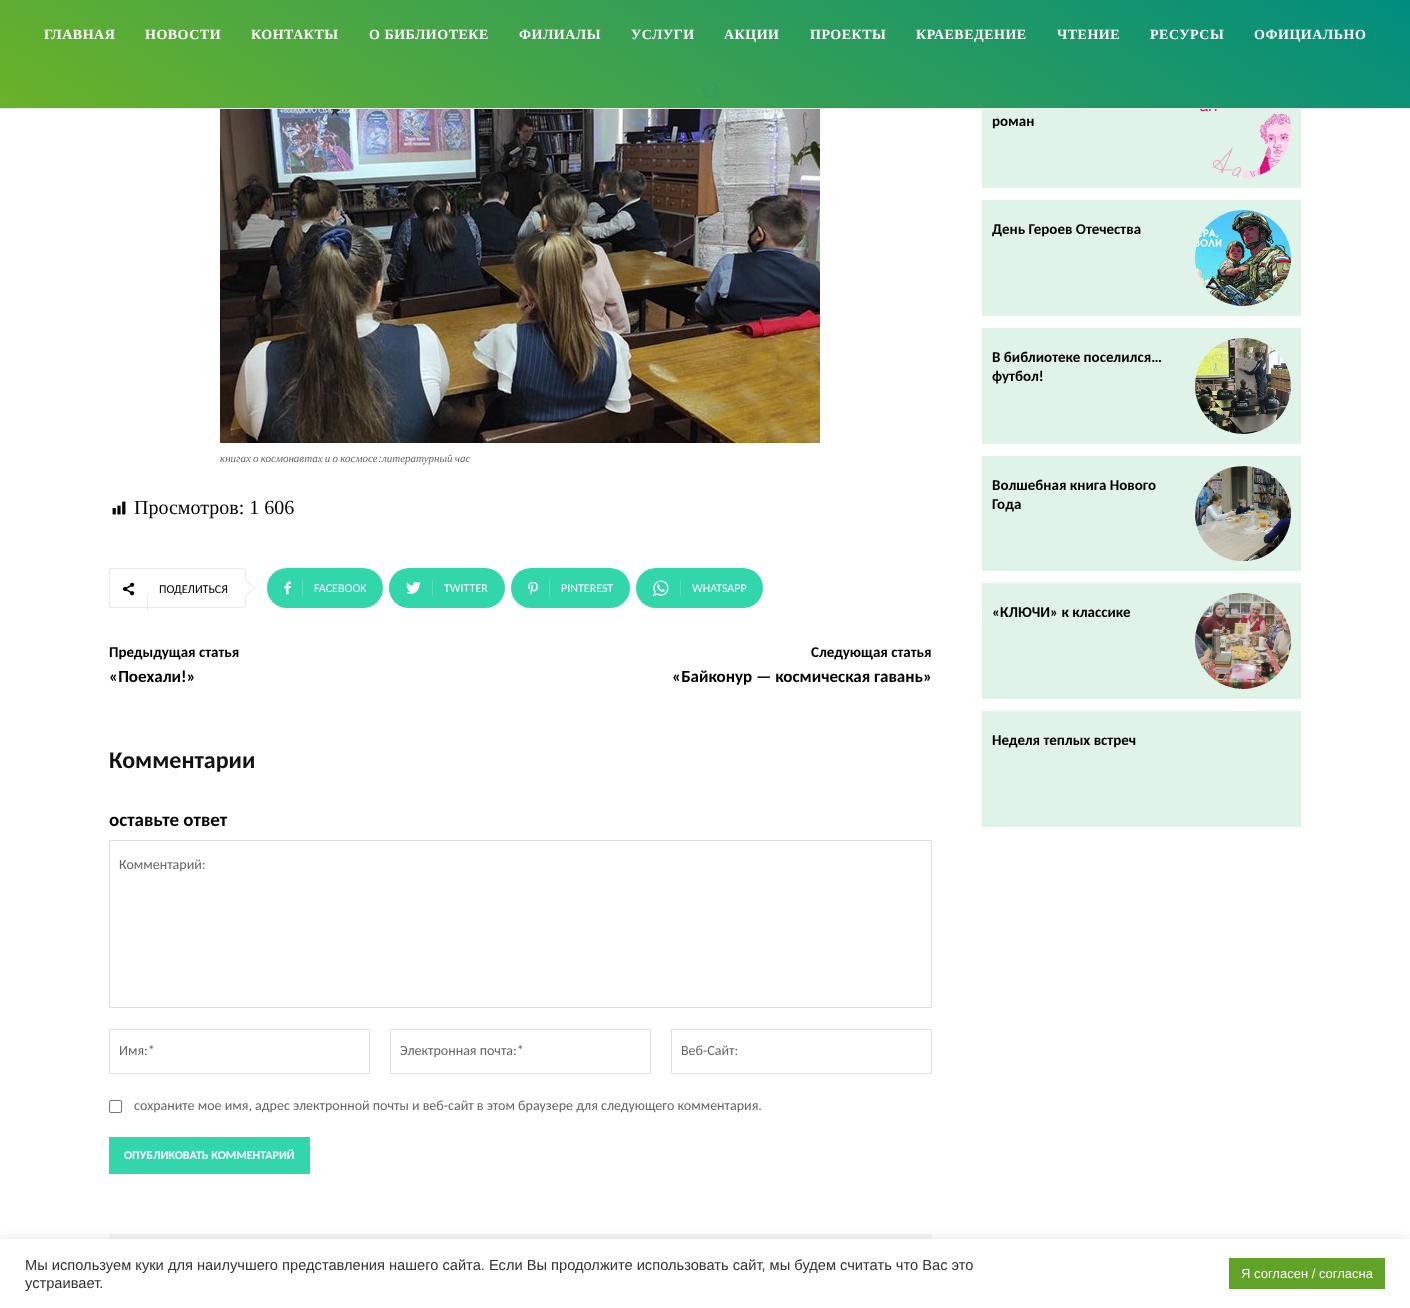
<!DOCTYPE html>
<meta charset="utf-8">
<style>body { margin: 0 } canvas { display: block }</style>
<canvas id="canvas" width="1410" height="1308"></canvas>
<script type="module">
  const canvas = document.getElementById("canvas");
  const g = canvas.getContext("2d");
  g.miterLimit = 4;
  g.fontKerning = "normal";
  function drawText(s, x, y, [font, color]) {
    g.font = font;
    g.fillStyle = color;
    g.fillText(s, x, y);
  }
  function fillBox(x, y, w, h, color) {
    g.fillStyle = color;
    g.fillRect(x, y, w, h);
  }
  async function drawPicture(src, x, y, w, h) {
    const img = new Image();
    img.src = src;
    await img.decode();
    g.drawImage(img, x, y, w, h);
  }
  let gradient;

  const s1 = ["bold 14px Liberation Serif", "#FFFFFF"];
  const s2 = ["italic 11px Liberation Serif", "#666666"];
  const s3 = ["italic 11px Lato", "#666666"];
  const s4 = ["20px Liberation Serif", "#000000"];
  const s5 = ["12px Carlito", "#000000"];
  const s6 = ["12px Carlito", "#FFFFFF"];
  const s7 = ["bold 15px Carlito", "#000000"];
  const s8 = ["bold 17px Carlito", "#000000"];
  const s9 = ["bold 24px Carlito", "#111111"];
  const s10 = ["bold 19px Carlito", "#000000"];
  const s11 = ["14px Carlito", "#666666"];
  const s12 = ["bold 12px Carlito", "#FFFFFF"];
  const s13 = ["14.67px Liberation Sans", "#333333"];
  const s14 = ["13px Liberation Sans", "#FFFFFF"];

  fillBox(0, 0, 1410, 1308, "#FFFFFF");
  fillBox(0, 108, 1410, 1, "#EAEAEA");
  gradient = g.createLinearGradient(505, 400, 905, -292);
  gradient.addColorStop(0, "#6AB228");
  gradient.addColorStop(1, "#008D7F");
  g.fillStyle = gradient;
  g.fillRect(0, 0, 1410, 108);
  g.letterSpacing = "0.5px";
  drawText("ГЛАВНАЯ", 44, 39, s1);
  drawText("НОВОСТИ", 145, 39, s1);
  drawText("КОНТАКТЫ", 251, 39, s1);
  drawText("О БИБЛИОТЕКЕ", 369, 39, s1);
  drawText("ФИЛИАЛЫ", 519, 39, s1);
  drawText("УСЛУГИ", 631, 39, s1);
  drawText("АКЦИИ", 724, 39, s1);
  drawText("ПРОЕКТЫ", 810, 39, s1);
  drawText("КРАЕВЕДЕНИЕ", 916, 39, s1);
  drawText("ЧТЕНИЕ", 1057, 39, s1);
  drawText("РЕСУРСЫ", 1150, 39, s1);
  drawText("ОФИЦИАЛЬНО", 1254, 39, s1);
  await drawPicture("pic1.png", 702, 82, 17, 16);
  await drawPicture("pic2.png", 220, 109, 600, 334);
  g.letterSpacing = "0px";
  g.wordSpacing = "-0.5px";
  drawText("книгах о космонавтах и о космосе", 220, 462, s2);
  g.wordSpacing = "0px";
  drawText(":", 378, 462, s3);
  g.wordSpacing = "-0.5px";
  drawText("литературный час", 382, 462, s2);
  await drawPicture("pic3.png", 112, 501, 14, 14);
  g.wordSpacing = "0px";
  drawText("Просмотров: 1 606", 134, 514, s4);
  g.beginPath();
  g.roundRect(109.5, 568.5, 136, 39, 1.5);
  g.strokeStyle = "#E9E9E9";
  g.stroke();
  g.fillStyle = "#E9E9E9";
  g.beginPath();
  g.moveTo(245, 597);
  g.lineTo(245, 579);
  g.lineTo(256, 588);
  g.closePath();
  g.fill();
  await drawPicture("pic4.png", 123, 582, 12, 14);
  drawText("ПОДЕЛИТЬСЯ", 159, 593, s5);
  fillBox(147, 595, 1, 16, "rgba(0, 0, 0, 0.08)");
  g.fillStyle = "#FFFFFF";
  g.beginPath();
  g.moveTo(245, 596);
  g.lineTo(245, 580);
  g.lineTo(255, 588);
  g.closePath();
  g.fill();
  g.fillStyle = "#31D6AA";
  g.beginPath();
  g.roundRect(302, 568, 81, 40, [0, 20, 20, 0]);
  g.fill();
  g.beginPath();
  g.roundRect(267, 568, 41, 40, [20, 0, 0, 20]);
  g.fill();
  await drawPicture("pic5.png", 284, 581, 7, 14);
  fillBox(302, 580, 1, 16, "#5ADEBB");
  drawText("FACEBOOK", 314, 592, s6);
  g.fillStyle = "#31D6AA";
  g.beginPath();
  g.roundRect(432, 568, 73, 40, [0, 20, 20, 0]);
  g.fill();
  g.beginPath();
  g.roundRect(389, 568, 49, 40, [20, 0, 0, 20]);
  g.fill();
  await drawPicture("pic6.png", 406, 581, 15, 13);
  fillBox(432, 580, 1, 16, "#5ADEBB");
  drawText("TWITTER", 444, 592, s6);
  g.fillStyle = "#31D6AA";
  g.beginPath();
  g.roundRect(549, 568, 81, 40, [0, 20, 20, 0]);
  g.fill();
  g.beginPath();
  g.roundRect(511, 568, 44, 40, [20, 0, 0, 20]);
  g.fill();
  await drawPicture("pic7.png", 528, 581, 11, 14);
  fillBox(549, 580, 1, 16, "#5ADEBB");
  drawText("PINTEREST", 561, 592, s6);
  g.fillStyle = "#31D6AA";
  g.beginPath();
  g.roundRect(680, 568, 83, 40, [0, 20, 20, 0]);
  g.fill();
  g.beginPath();
  g.roundRect(636, 568, 50, 40, [20, 0, 0, 20]);
  g.fill();
  await drawPicture("pic8.png", 653, 580, 16, 16);
  fillBox(680, 580, 1, 16, "#5ADEBB");
  drawText("WHATSAPP", 692, 592, s6);
  drawText("Предыдущая статья", 109, 657, s7);
  drawText("«Поехали!»", 109, 682, s8);
  drawText("Следующая статья", 811, 657, s7);
  drawText("«Байконур — космическая гавань»", 672, 682, s8);
  drawText("Комментарии", 109, 768, s9);
  drawText("оставьте ответ", 109, 826, s10);
  g.strokeStyle = "#E1E1E1";
  g.strokeRect(109.5, 840.5, 822, 167);
  drawText("Комментарий:", 119, 869, s11);
  g.strokeRect(109.5, 1029.5, 260, 44);
  drawText("Имя:*", 119, 1055, s11);
  g.strokeRect(390.5, 1029.5, 260, 44);
  drawText("Электронная почта:*", 400, 1055, s11);
  g.strokeRect(671.5, 1029.5, 260, 44);
  drawText("Веб-Сайт:", 681, 1055, s11);
  g.beginPath();
  g.roundRect(109.5, 1100.5, 12, 12, 1.5);
  g.strokeStyle = "#767676";
  g.stroke();
  drawText("сохраните мое имя, адрес электронной почты и веб-сайт в этом браузере для следующего комментария.", 134, 1110, s11);
  fillBox(109, 1137, 201, 37, "#31D6AA");
  drawText("ОПУБЛИКОВАТЬ КОММЕНТАРИЙ", 124, 1159, s12);
  fillBox(109, 1234, 823, 5, "#F5F5F5");
  fillBox(982, 109, 319, 79, "#DFF3E9");
  drawText("роман", 992, 126, s7);
  await drawPicture("pic9.png", 1199, 109, 92, 69);
  fillBox(982, 200, 319, 116, "#DFF3E9");
  drawText("День Героев Отечества", 992, 234, s7);
  await drawPicture("pic10.png", 1195, 210, 96, 96);
  fillBox(982, 328, 319, 116, "#DFF3E9");
  drawText("В библиотеке поселился…", 992, 362, s7);
  drawText("футбол!", 992, 381, s7);
  await drawPicture("pic11.png", 1195, 338, 96, 96);
  fillBox(982, 456, 319, 115, "#DFF3E9");
  drawText("Волшебная книга Нового", 992, 490, s7);
  drawText("Года", 992, 509, s7);
  await drawPicture("pic12.png", 1195, 466, 96, 95);
  fillBox(982, 583, 319, 116, "#DFF3E9");
  drawText("«КЛЮЧИ» к классике", 992, 617, s7);
  await drawPicture("pic13.png", 1195, 593, 96, 96);
  fillBox(982, 711, 319, 116, "#DFF3E9");
  drawText("Неделя теплых встреч", 992, 745, s7);
  g.fillStyle = "rgba(172, 171, 171, 0.3)";
  g.filter = "blur(5px)";
  g.beginPath();
  g.rect(0, 1238, 1410, 69);
  g.fill();
  g.filter = "none";
  fillBox(0, 1239, 1410, 69, "#FFFFFF");
  drawText("Мы используем куки для наилучшего представления нашего сайта. Если Вы продолжите использовать сайт, мы будем считать что Вас это", 25, 1270, s13);
  drawText("устраивает.", 25, 1288, s13);
  fillBox(1229, 1258, 156, 31, "#61A229");
  drawText("Я согласен / согласна", 1241, 1278, s14);
</script>
